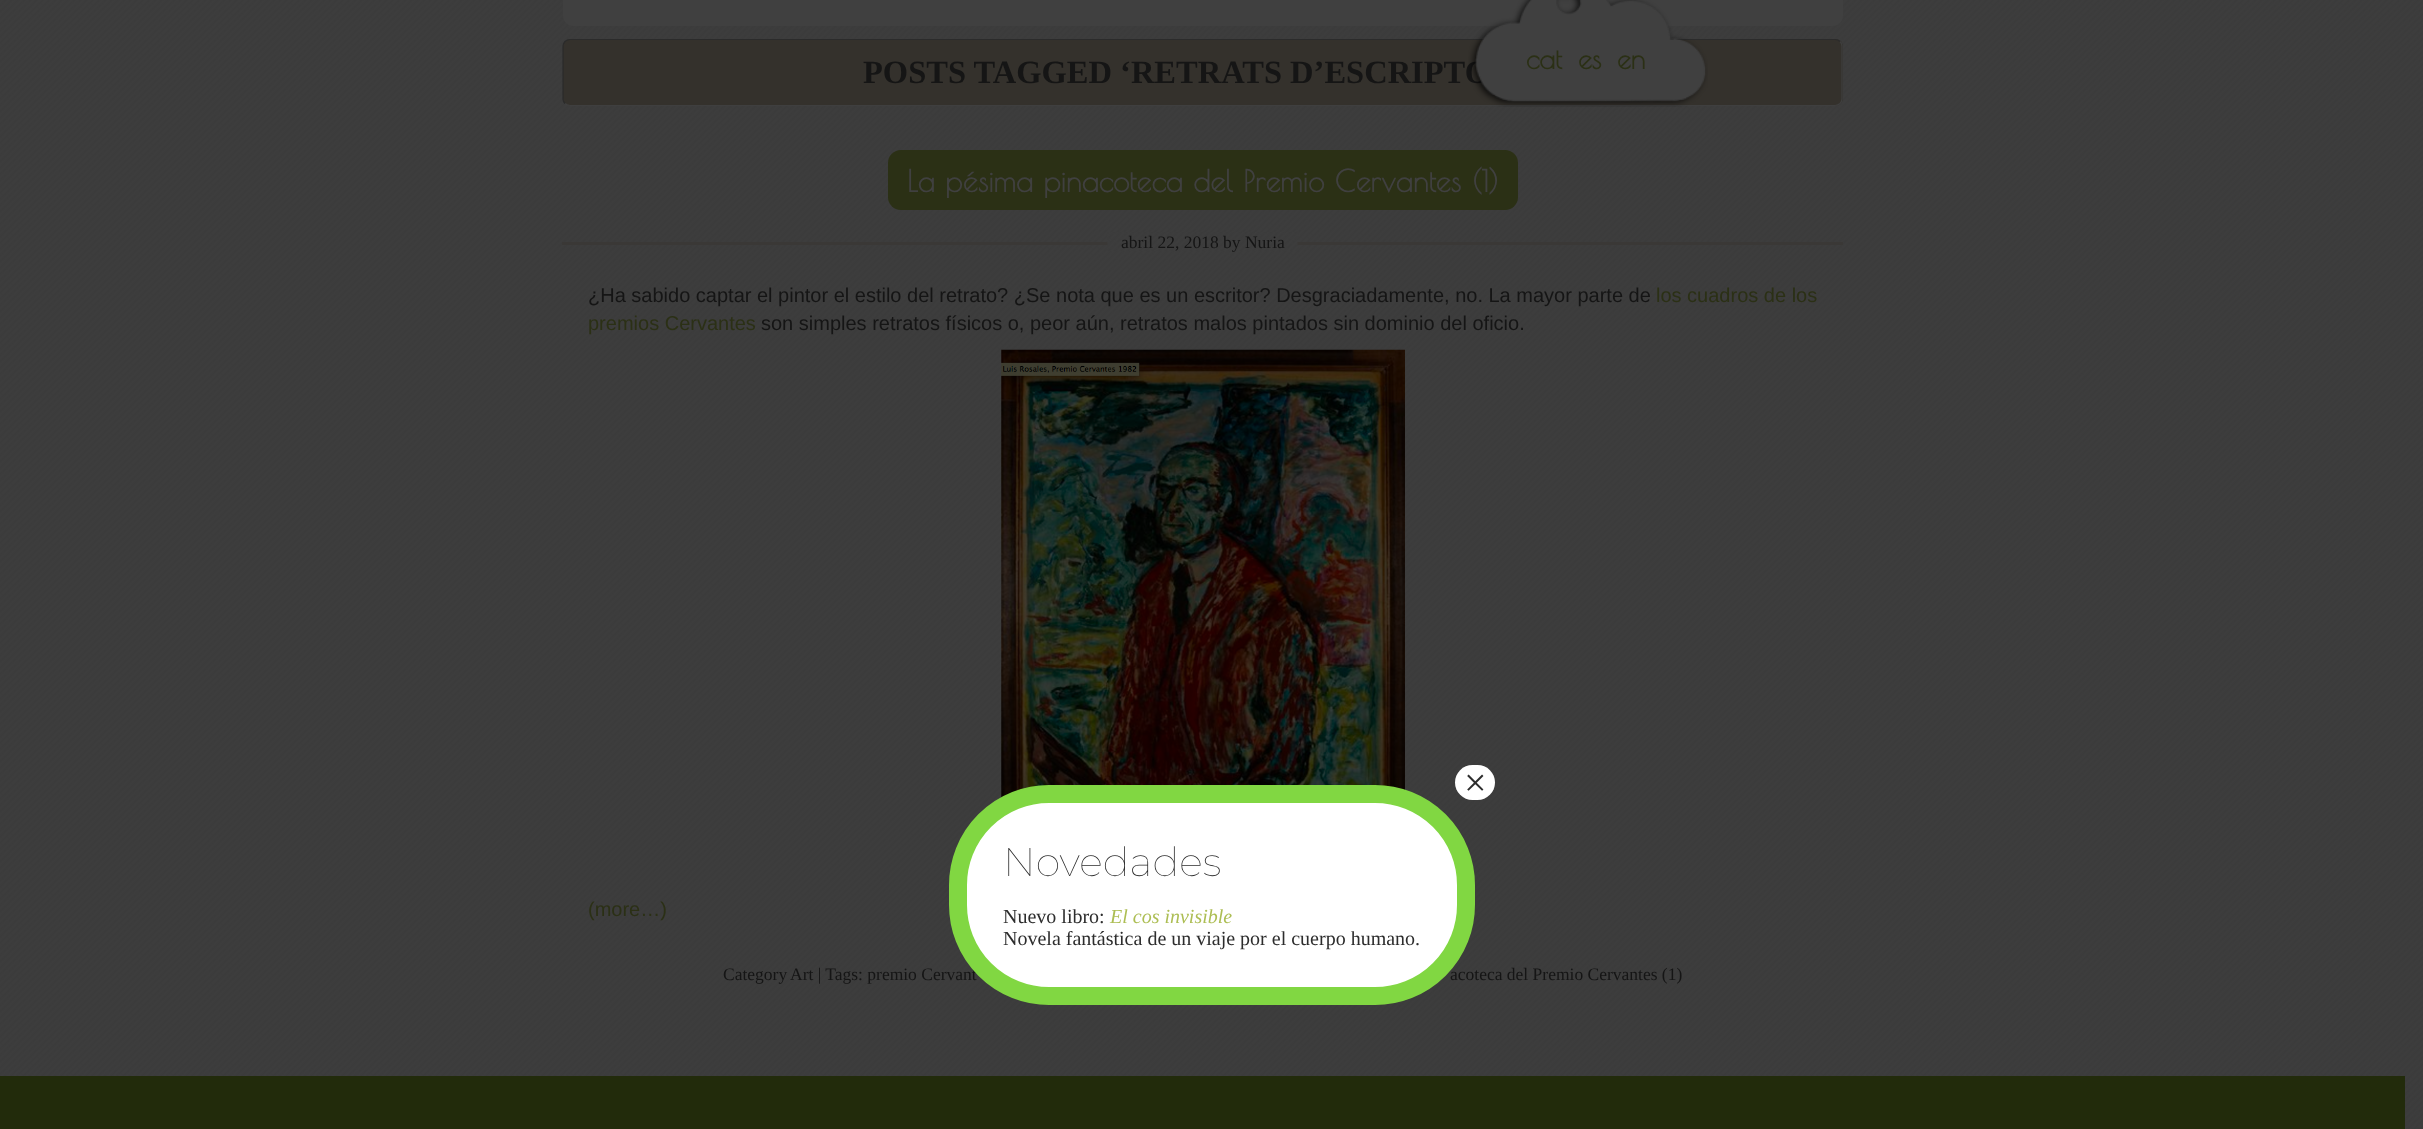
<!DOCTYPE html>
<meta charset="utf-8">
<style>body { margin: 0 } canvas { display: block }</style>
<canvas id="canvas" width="2423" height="1129"></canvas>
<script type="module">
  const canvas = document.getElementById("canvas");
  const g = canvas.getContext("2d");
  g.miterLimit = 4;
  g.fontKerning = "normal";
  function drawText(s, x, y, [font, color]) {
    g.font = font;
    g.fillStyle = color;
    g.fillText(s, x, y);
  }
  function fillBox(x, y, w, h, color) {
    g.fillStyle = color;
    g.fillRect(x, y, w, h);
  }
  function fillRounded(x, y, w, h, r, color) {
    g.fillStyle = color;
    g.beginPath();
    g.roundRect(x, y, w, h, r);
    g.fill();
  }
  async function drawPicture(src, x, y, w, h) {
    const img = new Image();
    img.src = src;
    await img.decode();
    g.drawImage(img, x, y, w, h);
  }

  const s1 = ["bold 32.5px Liberation Serif", "#151515"];
  const s2 = ["bold 28px Poiret One", "#2B3015"];
  const s3 = ["bold 30px Poiret One", "#404040"];
  const s4 = ["17.5px Liberation Serif", "#151515"];
  const s5 = ["20px Arimo", "#151515"];
  const s6 = ["20px Arimo", "#2B3015"];
  const s7 = ["40px Liberation Serif", "#2D2D2D"];
  const s8 = ["100 40px Montserrat", "#2D2D2D"];
  const s9 = ["20px Liberation Serif", "#2D2D2D"];
  const s10 = ["italic 20px Liberation Serif", "#ADBE54"];

  fillBox(0, 0, 2423, 1129, "#FFFFFF");
  await drawPicture("pic1.png", 0, 0, 2423, 1129);
  g.fillStyle = "#404040";
  g.beginPath();
  g.moveTo(563, -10);
  g.lineTo(1843, -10);
  g.lineTo(1843, 16);
  g.bezierCurveTo(1843, 21.5, 1838.5, 26, 1833, 26);
  g.lineTo(573, 26);
  g.bezierCurveTo(567.5, 26, 563, 21.5, 563, 16);
  g.closePath();
  g.fill();
  fillRounded(563, 39, 1280, 67, 8, "#34312C");
  g.beginPath();
  g.moveTo(1840, 41.5);
  g.bezierCurveTo(1841, 42.5, 1842, 44.5, 1842, 46);
  g.lineTo(1842, 99);
  g.bezierCurveTo(1842, 100.5, 1841, 102.5, 1840, 103.5);
  g.bezierCurveTo(1838.5, 105, 1837, 105.5, 1835, 105.5);
  g.lineTo(570, 105.5);
  g.bezierCurveTo(568, 105.5, 566.5, 105, 565, 103.5);
  g.strokeStyle = "#3F3F3F";
  g.lineWidth = 1.2;
  g.stroke();
  g.beginPath();
  g.moveTo(565, 103.5);
  g.bezierCurveTo(564, 102.5, 563, 100.5, 563, 99);
  g.lineTo(563, 46);
  g.bezierCurveTo(563, 44.5, 564, 42.5, 565, 41.5);
  g.bezierCurveTo(566.5, 40, 568, 39.5, 570, 39.5);
  g.lineTo(1835, 39.5);
  g.bezierCurveTo(1837, 39.5, 1838.5, 40, 1840, 41.5);
  g.strokeStyle = "#2B2B2B";
  g.stroke();
  drawText("POSTS TAGGED ‘RETRATS D’ESCRIPTO", 863, 83, s1);
  await drawPicture("pic2.png", 1468, 0, 240, 107);
  drawText("cat", 1526, 69, s2);
  drawText("es", 1578, 69, s2);
  drawText("en", 1617, 69, s2);
  fillRounded(888, 150, 630, 60, 13, "#2B3015");
  drawText("La pésima pinacoteca del Premio Cervantes (1)", 907, 192, s3);
  fillBox(562, 242, 1281, 3, "#3A3836");
  await drawPicture("pic3.png", 1107, 232, 191, 19);
  drawText("abril 22, 2018 by Nuria", 1121, 248, s4);
  drawText("¿Ha sabido captar el pintor el estilo del retrato? ¿Se nota que es un escritor? Desgraciadamente, no. La mayor parte de", 588, 302, s5);
  drawText("los cuadros de los", 1656, 302, s6);
  drawText("premios Cervantes", 588, 330, s6);
  drawText("son simples retratos físicos o, peor aún, retratos malos pintados sin dominio del oficio.", 761, 330, s5);
  await drawPicture("pic4.png", 1001, 349, 404, 449);
  drawText("(more…)", 588, 916, s6);
  drawText("Category", 723, 980, s4);
  drawText("Art | Tags: premio Cervant", 790, 980, s4);
  drawText("acoteca del Premio Cervantes (1)", 1450, 980, s4);
  fillBox(0, 1076, 2405, 53, "#222B0B");
  g.fillStyle = "#FFFFFF";
  g.beginPath();
  g.roundRect(958, 794, 508, 202, 91);
  g.fill();
  g.strokeStyle = "#81D742";
  g.lineWidth = 18;
  g.stroke();
  fillRounded(1455, 765, 40, 35, 17.5, "#FFFFFF");
  drawText("×", 1464, 796, s7);
  drawText("Novedades", 1003, 876, s8);
  drawText("Nuevo libro:", 1003, 923, s9);
  drawText("El cos invisible", 1110, 923, s10);
  drawText("Novela fantástica de un viaje por el cuerpo humano.", 1003, 945, s9);
</script>
